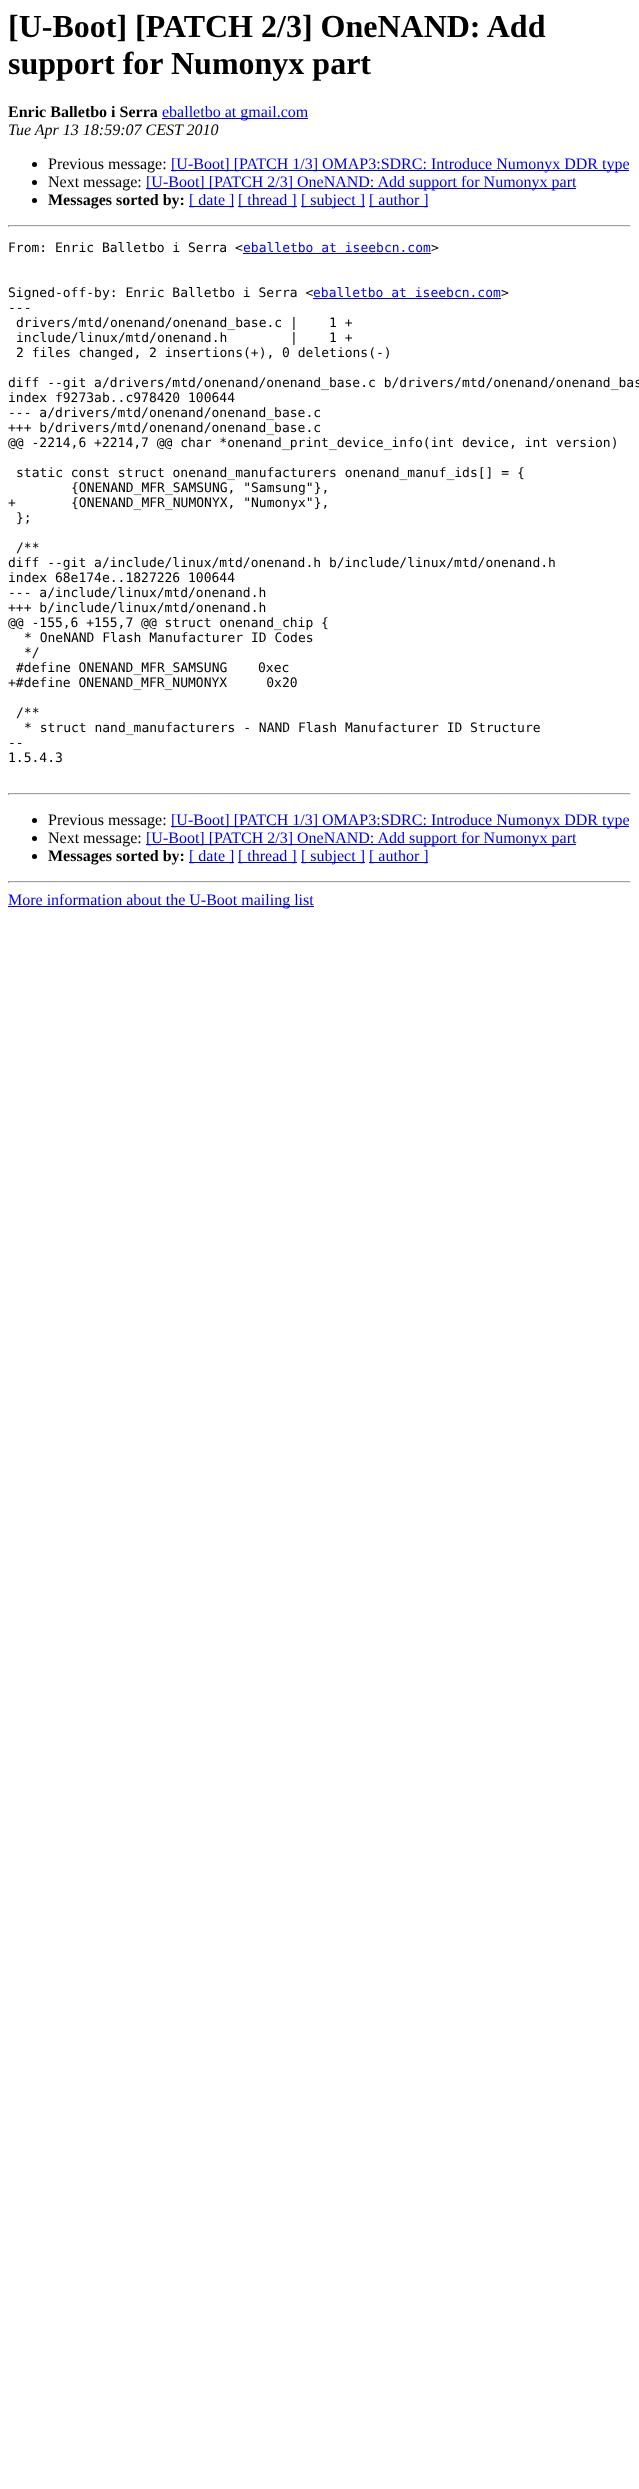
<!DOCTYPE html>
<meta charset="utf-8">
<style>body { margin: 0 } canvas { display: block }</style>
<canvas id="canvas" width="639" height="2489"></canvas>
<script type="module">
  const canvas = document.getElementById("canvas");
  const g = canvas.getContext("2d");
  g.miterLimit = 4;
  g.fontKerning = "normal";
  function drawText(s, x, y, [font, color]) {
    g.font = font;
    g.fillStyle = color;
    g.fillText(s, x, y);
  }
  function fillBox(x, y, w, h, color) {
    g.fillStyle = color;
    g.fillRect(x, y, w, h);
  }

  const s1 = ["bold 32px Liberation Serif", "#000000"];
  const s2 = ["bold 16px Liberation Serif", "#000000"];
  const s3 = ["16px Liberation Serif", "#0000EE"];
  const s4 = ["italic 16px Liberation Serif", "#000000"];
  const s5 = ["16px Liberation Serif", "#000000"];
  const s6 = ["13px DejaVu Sans Mono", "#000000"];
  const s7 = ["13px DejaVu Sans Mono", "#0000EE"];

  fillBox(0, 0, 639, 2489, "#FFFFFF");
  drawText("[U-Boot] [PATCH 2/3] OneNAND: Add", 8, 37, s1);
  drawText("support for Numonyx part", 8, 74, s1);
  drawText("Enric Balletbo i Serra", 8, 117, s2);
  fillBox(162, 118, 146, 1, "#0000EE");
  drawText("eballetbo at gmail.com", 162, 117, s3);
  drawText("Tue Apr 13 18:59:07 CEST 2010", 8, 135, s4);
  g.beginPath();
  g.arc(34.5, 164.5, 2.5, 0, Math.PI * 2);
  g.fill();
  drawText("Previous message:", 48, 169, s5);
  fillBox(171, 170, 458, 1, "#0000EE");
  drawText("[U-Boot] [PATCH 1/3] OMAP3:SDRC: Introduce Numonyx DDR type", 171, 169, s3);
  g.fillStyle = "#000000";
  g.beginPath();
  g.arc(34.5, 182.5, 2.5, 0, Math.PI * 2);
  g.fill();
  drawText("Next message:", 48, 187, s5);
  fillBox(146, 188, 430, 1, "#0000EE");
  drawText("[U-Boot] [PATCH 2/3] OneNAND: Add support for Numonyx part", 146, 187, s3);
  g.fillStyle = "#000000";
  g.beginPath();
  g.arc(34.5, 200.5, 2.5, 0, Math.PI * 2);
  g.fill();
  drawText("Messages sorted by:", 48, 205, s2);
  fillBox(189, 206, 45, 1, "#0000EE");
  drawText("[ date ]", 189, 205, s3);
  fillBox(238, 206, 59, 1, "#0000EE");
  drawText("[ thread ]", 238, 205, s3);
  fillBox(301, 206, 64, 1, "#0000EE");
  drawText("[ subject ]", 301, 205, s3);
  fillBox(369, 206, 59, 1, "#0000EE");
  drawText("[ author ]", 369, 205, s3);
  fillBox(8, 225, 623, 1, "#9F9F9F");
  fillBox(630, 225, 1, 2, "#EEEEEE");
  fillBox(8, 226, 623, 1, "#EEEEEE");
  fillBox(8, 225, 1, 2, "#9F9F9F");
  drawText("From: Enric Balletbo i Serra <", 8, 252, s6);
  drawText("eballetbo at iseebcn.com", 243, 252, s7);
  fillBox(243, 253, 188, 1, "#0000EE");
  drawText(">", 431, 252, s6);
  drawText("Signed-off-by: Enric Balletbo i Serra <", 8, 297, s6);
  drawText("eballetbo at iseebcn.com", 313, 297, s7);
  fillBox(313, 298, 188, 1, "#0000EE");
  drawText(">", 501, 297, s6);
  drawText("---", 8, 312, s6);
  drawText("drivers/mtd/onenand/onenand_base.c |    1 +", 16, 327, s6);
  drawText("include/linux/mtd/onenand.h        |    1 +", 16, 342, s6);
  drawText("2 files changed, 2 insertions(+), 0 deletions(-)", 16, 357, s6);
  drawText("diff --git a/drivers/mtd/onenand/onenand_base.c b/drivers/mtd/onenand/onenand_bas", 8, 387, s6);
  drawText("index f9273ab..c978420 100644", 8, 402, s6);
  drawText("--- a/drivers/mtd/onenand/onenand_base.c", 8, 417, s6);
  drawText("+++ b/drivers/mtd/onenand/onenand_base.c", 8, 432, s6);
  drawText("@@ -2214,6 +2214,7 @@ char *onenand_print_device_info(int device, int version)", 8, 447, s6);
  drawText("static const struct onenand_manufacturers onenand_manuf_ids[] = {", 16, 477, s6);
  drawText("{ONENAND_MFR_SAMSUNG, \"Samsung\"},", 71, 492, s6);
  drawText("+", 8, 507, s6);
  drawText("{ONENAND_MFR_NUMONYX, \"Numonyx\"},", 71, 507, s6);
  drawText("};", 16, 522, s6);
  drawText("/**", 16, 552, s6);
  drawText("diff --git a/include/linux/mtd/onenand.h b/include/linux/mtd/onenand.h", 8, 567, s6);
  drawText("index 68e174e..1827226 100644", 8, 582, s6);
  drawText("--- a/include/linux/mtd/onenand.h", 8, 597, s6);
  drawText("+++ b/include/linux/mtd/onenand.h", 8, 612, s6);
  drawText("@@ -155,6 +155,7 @@ struct onenand_chip {", 8, 627, s6);
  drawText("* OneNAND Flash Manufacturer ID Codes", 24, 642, s6);
  drawText("*/", 24, 657, s6);
  drawText("#define ONENAND_MFR_SAMSUNG", 16, 672, s6);
  drawText("0xec", 258, 672, s6);
  drawText("+#define ONENAND_MFR_NUMONYX     0x20", 8, 687, s6);
  drawText("/**", 16, 717, s6);
  drawText("* struct nand_manufacturers - NAND Flash Manufacturer ID Structure", 24, 732, s6);
  drawText("--", 8, 747, s6);
  drawText("1.5.4.3", 8, 762, s6);
  fillBox(8, 793, 623, 1, "#9F9F9F");
  fillBox(630, 793, 1, 2, "#EEEEEE");
  fillBox(8, 794, 623, 1, "#EEEEEE");
  fillBox(8, 793, 1, 2, "#9F9F9F");
  g.fillStyle = "#000000";
  g.beginPath();
  g.arc(34.5, 820.5, 2.5, 0, Math.PI * 2);
  g.fill();
  drawText("Previous message:", 48, 825, s5);
  fillBox(171, 826, 458, 1, "#0000EE");
  drawText("[U-Boot] [PATCH 1/3] OMAP3:SDRC: Introduce Numonyx DDR type", 171, 825, s3);
  g.fillStyle = "#000000";
  g.beginPath();
  g.arc(34.5, 838.5, 2.5, 0, Math.PI * 2);
  g.fill();
  drawText("Next message:", 48, 843, s5);
  fillBox(146, 844, 430, 1, "#0000EE");
  drawText("[U-Boot] [PATCH 2/3] OneNAND: Add support for Numonyx part", 146, 843, s3);
  g.fillStyle = "#000000";
  g.beginPath();
  g.arc(34.5, 856.5, 2.5, 0, Math.PI * 2);
  g.fill();
  drawText("Messages sorted by:", 48, 861, s2);
  fillBox(189, 862, 45, 1, "#0000EE");
  drawText("[ date ]", 189, 861, s3);
  fillBox(238, 862, 59, 1, "#0000EE");
  drawText("[ thread ]", 238, 861, s3);
  fillBox(301, 862, 64, 1, "#0000EE");
  drawText("[ subject ]", 301, 861, s3);
  fillBox(369, 862, 59, 1, "#0000EE");
  drawText("[ author ]", 369, 861, s3);
  fillBox(8, 881, 623, 1, "#9F9F9F");
  fillBox(630, 881, 1, 2, "#EEEEEE");
  fillBox(8, 882, 623, 1, "#EEEEEE");
  fillBox(8, 881, 1, 2, "#9F9F9F");
  fillBox(8, 906, 306, 1, "#0000EE");
  drawText("More information about the U-Boot mailing list", 8, 905, s3);
</script>
